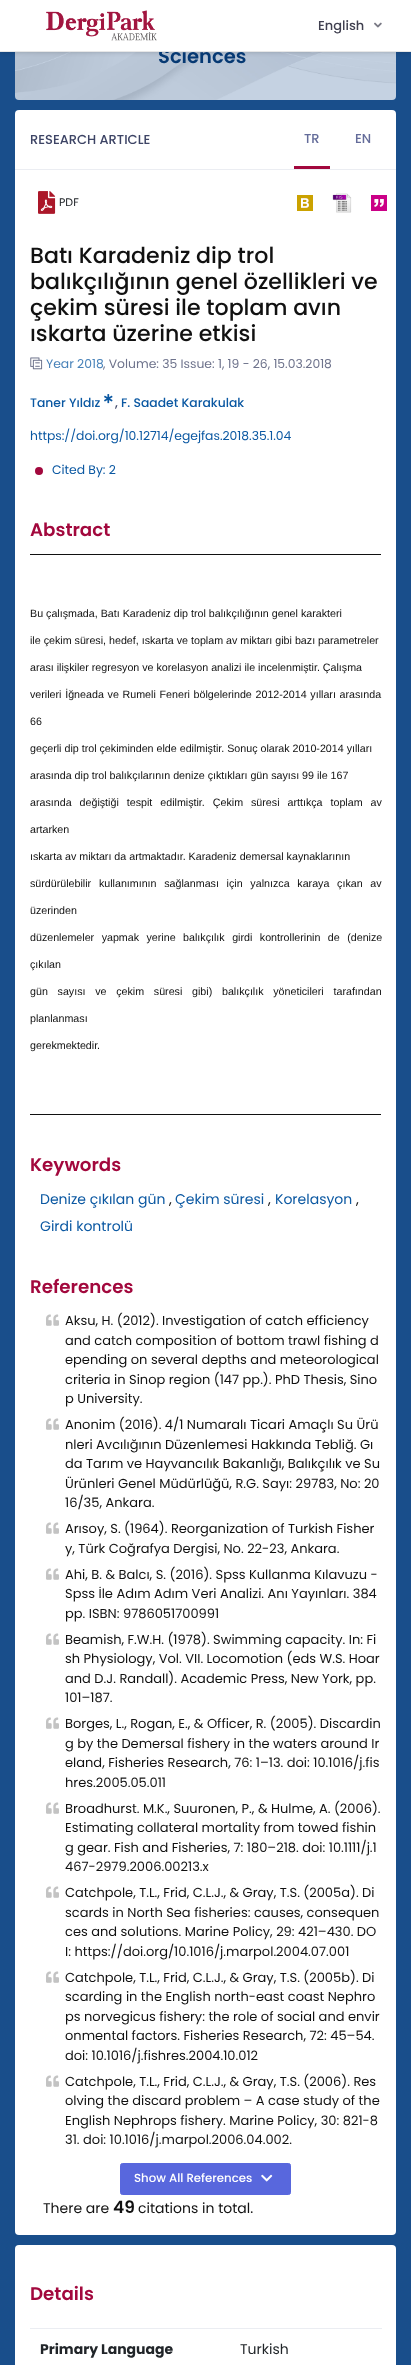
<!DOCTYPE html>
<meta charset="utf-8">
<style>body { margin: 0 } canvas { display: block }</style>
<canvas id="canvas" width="411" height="2365"></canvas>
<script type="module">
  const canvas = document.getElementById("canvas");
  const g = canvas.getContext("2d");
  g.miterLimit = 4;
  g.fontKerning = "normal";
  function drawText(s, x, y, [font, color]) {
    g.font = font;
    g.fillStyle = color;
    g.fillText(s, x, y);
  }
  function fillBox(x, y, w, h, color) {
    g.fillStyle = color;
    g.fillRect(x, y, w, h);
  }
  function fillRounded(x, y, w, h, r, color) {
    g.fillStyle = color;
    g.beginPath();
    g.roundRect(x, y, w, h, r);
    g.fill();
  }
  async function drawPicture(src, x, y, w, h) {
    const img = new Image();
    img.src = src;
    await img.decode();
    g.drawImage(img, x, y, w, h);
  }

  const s1 = ["600 19.5px Poppins", "#063973"];
  const s2 = ["500 13px Poppins", "#404050"];
  const s3 = ["500 13px Poppins", "#3D4465"];
  const s4 = ["500 13px Poppins", "#646C9A"];
  const s5 = ["11px Poppins", "#212529"];
  const s6 = ["500 22.1px Poppins", "#111111"];
  const s7 = ["12.35px Poppins", "#4882B9"];
  const s8 = ["12.35px Poppins", "#6E738C"];
  const s9 = ["500 12.35px Poppins", "#0B58A2"];
  const s10 = ["500 12.35px Poppins", "#3D4465"];
  const s11 = ["12.35px Poppins", "#0B58A2"];
  const s12 = ["600 18.25px Poppins", "#A2083D"];
  const s13 = ["10.7px Liberation Sans", "#111111"];
  const s14 = ["14px Poppins", "#0B58A2"];
  const s15 = ["14px Poppins", "#111111"];
  const s16 = ["13px Poppins", "#111111"];
  const s17 = ["500 11.75px Poppins", "#FFFFFF"];
  const s18 = ["600 17px Poppins", "#111111"];
  const s19 = ["bold 14px Poppins", "#212529"];
  const s20 = ["14px Poppins", "#212529"];

  fillBox(0, 0, 411, 2365, "#194E8B");
  await drawPicture("pic3.png", 15, 52, 381, 48);
  g.fillStyle = "rgba(0, 0, 0, 0.2)";
  g.filter = "blur(2.5px)";
  g.beginPath();
  g.rect(0, 0, 411, 52);
  g.fill();
  g.filter = "none";
  drawText("Sciences", 158, 63, s1);
  fillBox(0, 0, 411, 51, "#FFFFFF");
  fillBox(0, 51, 411, 1, "#E7E7E7");
  await drawPicture("pic1.png", 46, 10, 111, 31);
  drawText("English", 318, 30, s2);
  await drawPicture("pic2.png", 374, 22, 8, 6);
  fillRounded(15, 110, 381, 2125, 4, "#FFFFFF");
  fillBox(15, 169, 381, 1, "#EBEDF2");
  drawText("RESEARCH ARTICLE", 30, 144, s3);
  fillBox(294, 166, 36, 3, "#A2083D");
  drawText("TR", 304, 143, s4);
  drawText("EN", 355, 143, s4);
  await drawPicture("pic4.png", 38, 191, 18, 23);
  drawText("PDF", 59, 206, s5);
  await drawPicture("pic5.png", 297, 195, 16, 16);
  await drawPicture("pic6.png", 332, 193, 20, 20);
  await drawPicture("pic7.png", 371, 195, 16, 16);
  drawText("Batı Karadeniz dip trol", 30, 263, s6);
  drawText("balıkçılığının genel özellikleri ve", 30, 289, s6);
  drawText("çekim süresi ile toplam avın", 30, 315, s6);
  drawText("ıskarta üzerine etkisi", 30, 341, s6);
  await drawPicture("pic8.png", 30, 357, 13, 13);
  drawText("Year 2018", 46, 368, s7);
  drawText(", Volume: 35 Issue: 1, 19 - 26, 15.03.2018", 103, 368, s8);
  drawText("Taner Yıldız", 30, 407, s9);
  await drawPicture("pic9.png", 104, 394, 9, 10);
  drawText(",", 115, 407, s10);
  drawText("F. Saadet Karakulak", 121, 407, s9);
  drawText("https://doi.org/10.12714/egejfas.2018.35.1.04", 30, 440, s11);
  g.fillStyle = "#A2083D";
  g.beginPath();
  g.arc(39, 471, 4, 0, Math.PI * 2);
  g.fill();
  drawText("Cited By: 2", 52, 474, s11);
  drawText("Abstract", 30, 536, s12);
  fillBox(30, 554, 351, 1, "#111111");
  fillBox(30, 1114, 351, 1, "#111111");
  drawText("Bu çalışmada, Batı Karadeniz dip trol balıkçılığının genel karakteri", 30, 617, s13);
  drawText("ile çekim süresi, hedef, ıskarta ve toplam av miktarı gibi bazı parametreler", 30, 644, s13);
  drawText("arası ilişkiler regresyon ve korelasyon analizi ile incelenmiştir. Çalışma", 30, 671, s13);
  g.wordSpacing = "0.75px";
  drawText("verileri İğneada ve Rumeli Feneri bölgelerinde 2012-2014 yılları arasında", 30, 698, s13);
  g.wordSpacing = "0px";
  drawText("66", 30, 725, s13);
  drawText("geçerli dip trol çekiminden elde edilmiştir. Sonuç olarak 2010-2014 yılları", 30, 752, s13);
  drawText("arasında dip trol balıkçılarının denize çıktıkları gün sayısı 99 ile 167", 30, 779, s13);
  g.wordSpacing = "5px";
  drawText("arasında değiştiği tespit edilmiştir. Çekim süresi arttıkça toplam av", 30, 806, s13);
  g.wordSpacing = "0px";
  drawText("artarken", 30, 833, s13);
  drawText("ıskarta av miktarı da artmaktadır. Karadeniz demersal kaynaklarının", 30, 860, s13);
  g.wordSpacing = "4.75px";
  drawText("sürdürülebilir kullanımının sağlanması için yalnızca karaya çıkan av", 30, 887, s13);
  g.wordSpacing = "0px";
  drawText("üzerinden", 30, 914, s13);
  g.wordSpacing = "4.5px";
  drawText("düzenlemeler yapmak yerine balıkçılık girdi kontrollerinin de (denize", 30, 941, s13);
  g.wordSpacing = "0px";
  drawText("çıkılan", 30, 968, s13);
  g.wordSpacing = "6.75px";
  drawText("gün sayısı ve çekim süresi gibi) balıkçılık yöneticileri tarafından", 30, 995, s13);
  g.wordSpacing = "0px";
  drawText("planlanması", 30, 1022, s13);
  drawText("gerekmektedir.", 30, 1049, s13);
  drawText("Keywords", 30, 1171, s12);
  drawText("Denize çıkılan gün", 40, 1204, s14);
  drawText(",", 169, 1204, s15);
  drawText("Çekim süresi", 175, 1204, s14);
  drawText(",", 268, 1204, s15);
  drawText("Korelasyon", 275, 1204, s14);
  drawText(",", 356, 1204, s15);
  drawText("Girdi kontrolü", 40, 1231, s14);
  drawText("References", 30, 1293, s12);
  await drawPicture("pic10.png", 46, 1314, 13, 12);
  drawText("Aksu, H. (2012). Investigation of catch efficiency", 65, 1325, s16);
  drawText("and catch composition of bottom trawl fishing d", 65, 1345, s16);
  drawText("epending on several depths and meteorological", 65, 1364, s16);
  drawText("criteria in Sinop region (147 pp.). PhD Thesis, Sino", 65, 1384, s16);
  drawText("p University.", 65, 1403, s16);
  await drawPicture("pic10.png", 46, 1418, 13, 12);
  drawText("Anonim (2016). 4/1 Numaralı Ticari Amaçlı Su Ürü", 65, 1429, s16);
  drawText("nleri Avcılığının Düzenlemesi Hakkında Tebliğ. Gı", 65, 1449, s16);
  drawText("da Tarım ve Hayvancılık Bakanlığı, Balıkçılık ve Su", 65, 1468, s16);
  drawText("Ürünleri Genel Müdürlüğü, R.G. Sayı: 29783, No: 20", 65, 1488, s16);
  drawText("16/35, Ankara.", 65, 1507, s16);
  await drawPicture("pic10.png", 46, 1522, 13, 12);
  drawText("Arısoy, S. (1964). Reorganization of Turkish Fisher", 65, 1533, s16);
  drawText("y, Türk Coğrafya Dergisi, No. 22-23, Ankara.", 65, 1553, s16);
  await drawPicture("pic10.png", 46, 1568, 13, 12);
  drawText("Ahi, B. & Balcı, S. (2016). Spss Kullanma Kılavuzu -", 65, 1579, s16);
  drawText("Spss İle Adım Adım Veri Analizi. Anı Yayınları. 384", 65, 1598, s16);
  drawText("pp. ISBN: 9786051700991", 65, 1618, s16);
  await drawPicture("pic10.png", 46, 1633, 13, 12);
  drawText("Beamish, F.W.H. (1978). Swimming capacity. In: Fi", 65, 1644, s16);
  drawText("sh Physiology, Vol. VII. Locomotion (eds W.S. Hoar", 65, 1663, s16);
  drawText("and D.J. Randall). Academic Press, New York, pp.", 65, 1683, s16);
  drawText("101–187.", 65, 1702, s16);
  await drawPicture("pic10.png", 46, 1717, 13, 12);
  drawText("Borges, L., Rogan, E., & Officer, R. (2005). Discardin", 65, 1728, s16);
  drawText("g by the Demersal fishery in the waters around Ir", 65, 1748, s16);
  drawText("eland, Fisheries Research, 76: 1–13. doi: 10.1016/j.fis", 65, 1767, s16);
  drawText("hres.2005.05.011", 65, 1787, s16);
  await drawPicture("pic10.png", 46, 1802, 13, 12);
  drawText("Broadhurst. M.K., Suuronen, P., & Hulme, A. (2006).", 65, 1813, s16);
  drawText("Estimating collateral mortality from towed fishin", 65, 1832, s16);
  drawText("g gear. Fish and Fisheries, 7: 180–218. doi: 10.1111/j.1", 65, 1852, s16);
  drawText("467-2979.2006.00213.x", 65, 1871, s16);
  await drawPicture("pic10.png", 46, 1886, 13, 12);
  drawText("Catchpole, T.L., Frid, C.L.J., & Gray, T.S. (2005a). Di", 65, 1897, s16);
  drawText("scards in North Sea fisheries: causes, consequen", 65, 1917, s16);
  drawText("ces and solutions. Marine Policy, 29: 421–430. DO", 65, 1936, s16);
  drawText("I: https://doi.org/10.1016/j.marpol.2004.07.001", 65, 1956, s16);
  await drawPicture("pic10.png", 46, 1971, 13, 12);
  drawText("Catchpole, T.L., Frid, C.L.J., & Gray, T.S. (2005b). Di", 65, 1982, s16);
  drawText("scarding in the English north-east coast Nephro", 65, 2001, s16);
  drawText("ps norvegicus fishery: the role of social and envir", 65, 2021, s16);
  drawText("onmental factors. Fisheries Research, 72: 45–54.", 65, 2040, s16);
  drawText("doi: 10.1016/j.fishres.2004.10.012", 65, 2060, s16);
  await drawPicture("pic10.png", 46, 2075, 13, 12);
  drawText("Catchpole, T.L., Frid, C.L.J., & Gray, T.S. (2006). Res", 65, 2086, s16);
  drawText("olving the discard problem – A case study of the", 65, 2105, s16);
  drawText("English Nephrops fishery. Marine Policy, 30: 821-8", 65, 2125, s16);
  drawText("31. doi: 10.1016/j.marpol.2006.04.002.", 65, 2144, s16);
  g.fillStyle = "#5867DD";
  g.beginPath();
  g.roundRect(120.5, 2163.5, 170, 31, 2);
  g.fill();
  g.strokeStyle = "#5867DD";
  g.stroke();
  drawText("Show All References", 134, 2182, s17);
  await drawPicture("pic11.png", 261, 2174, 12, 8);
  drawText("There are", 43, 2213, s15);
  drawText("49", 113, 2213, s18);
  drawText("citations in total.", 138, 2213, s15);
  fillRounded(15, 2245, 381, 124, 4, "#FFFFFF");
  drawText("Details", 30, 2300, s12);
  drawText("Primary Language", 40, 2354, s19);
  fillBox(30, 2328, 352, 1, "#EBEDF2");
  drawText("Turkish", 240, 2354, s20);
</script>
